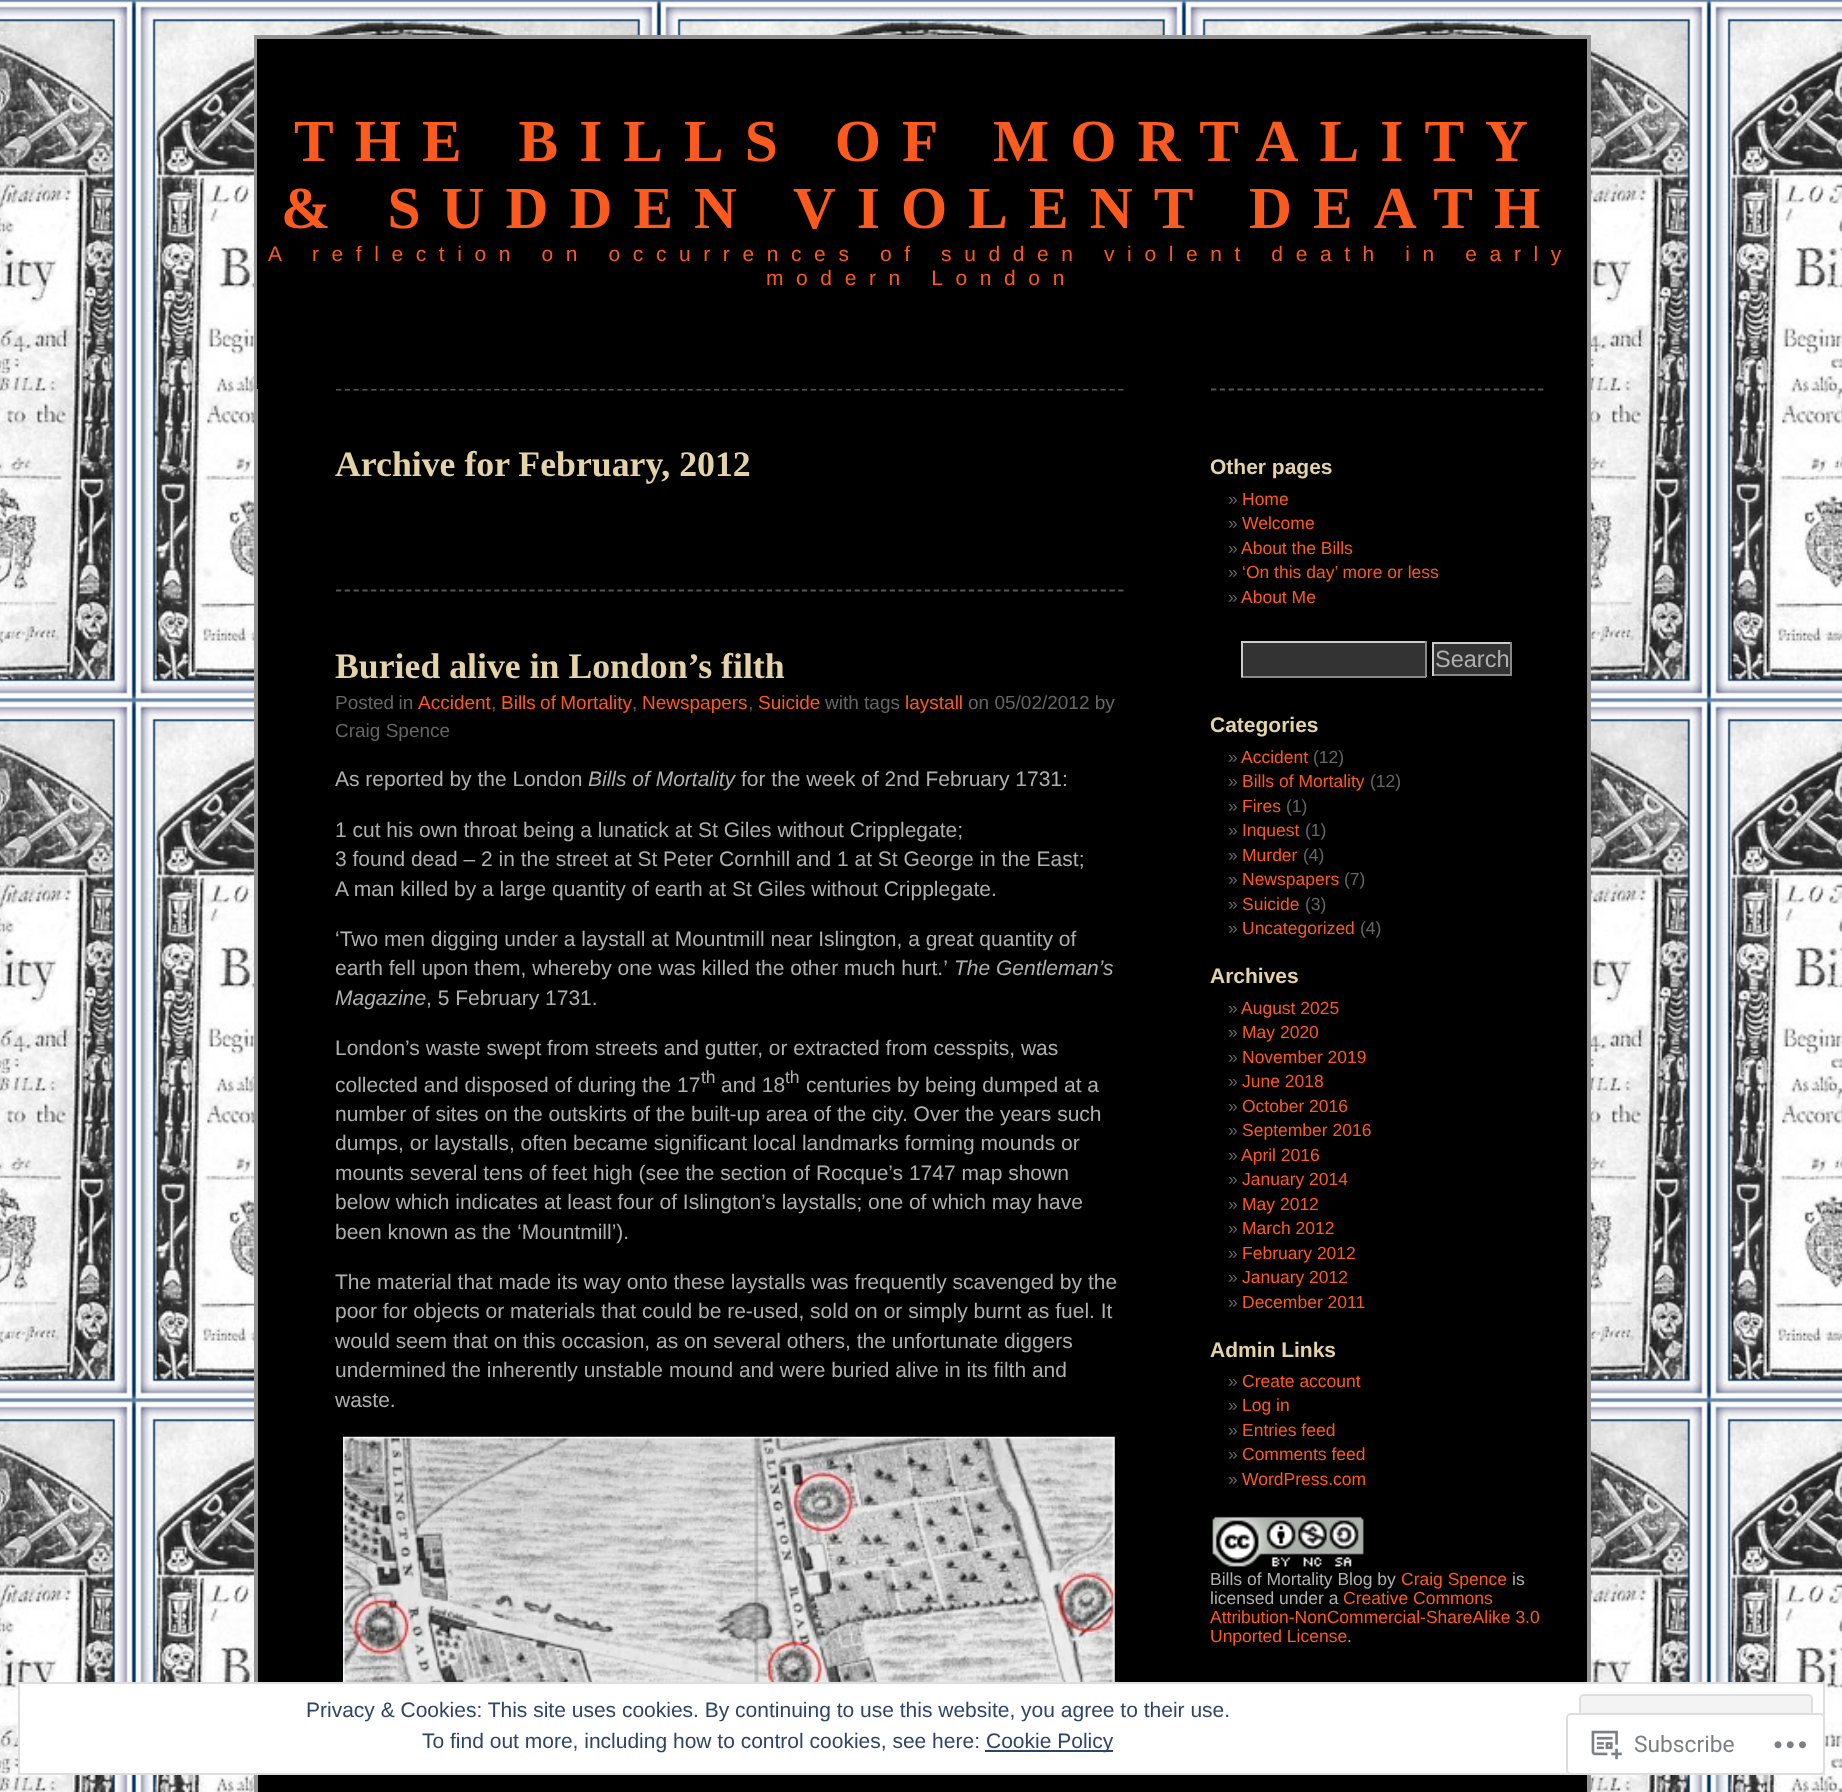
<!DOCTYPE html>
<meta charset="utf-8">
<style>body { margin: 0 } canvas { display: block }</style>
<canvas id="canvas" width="1842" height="1792"></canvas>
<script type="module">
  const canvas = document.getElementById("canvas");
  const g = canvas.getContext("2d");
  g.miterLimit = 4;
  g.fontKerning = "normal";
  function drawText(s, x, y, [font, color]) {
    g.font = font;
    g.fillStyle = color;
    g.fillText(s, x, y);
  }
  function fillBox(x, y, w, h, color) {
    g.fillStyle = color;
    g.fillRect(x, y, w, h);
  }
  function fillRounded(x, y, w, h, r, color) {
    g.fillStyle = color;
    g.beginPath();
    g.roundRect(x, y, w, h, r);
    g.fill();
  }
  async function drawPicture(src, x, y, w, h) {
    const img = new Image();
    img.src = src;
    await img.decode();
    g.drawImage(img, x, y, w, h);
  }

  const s1 = ["bold 59.5px Liberation Serif", "#FD5A1E"];
  const s2 = ["21px Liberation Sans", "#FD5A1E"];
  const s3 = ["bold 35.75px Liberation Serif", "#E4D3A6"];
  const s4 = ["19px Liberation Sans", "#666666"];
  const s5 = ["19px Liberation Sans", "#FD5A1E"];
  const s6 = ["21px Liberation Sans", "#B0B0B0"];
  const s7 = ["italic 21px Liberation Sans", "#B0B0B0"];
  const s8 = ["17.5px Liberation Sans", "#B0B0B0"];
  const s9 = ["bold 21px Liberation Sans", "#E4D3A6"];
  const s10 = ["17.5px Liberation Sans", "#666666"];
  const s11 = ["17.5px Liberation Sans", "#FD5A1E"];
  const s12 = ["23.5px Liberation Sans", "#B0B0B0"];
  const s13 = ["21px Liberation Sans", "#2E4467"];
  const s14 = ["22.75px Roboto", "#7B7F84"];

  fillBox(0, 0, 1842, 1792, "#FFFFFF");
  await drawPicture("pic1.png", 0, 0, 1842, 1792);
  fillBox(258, 389, 1329, 1403, "#000000");
  g.strokeStyle = "#959596";
  g.lineWidth = 4;
  g.strokeRect(256, 37, 1333, 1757);
  fillBox(257, 39, 1330, 350, "#000000");
  g.letterSpacing = "21px";
  drawText("THE BILLS OF MORTALITY", 294, 161, s1);
  drawText("& SUDDEN VIOLENT DEATH", 281, 228, s1);
  g.letterSpacing = "12.6px";
  drawText("A reflection on occurrences of sudden violent death in early", 268, 261, s2);
  drawText("modern London", 766, 285, s2);
  g.save();
  g.beginPath();
  g.rect(257, 389, 867, 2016);
  g.clip();
  g.beginPath();
  g.moveTo(336, 389.5);
  g.lineTo(1123.5, 389.5);
  g.strokeStyle = "#555555";
  g.lineWidth = 1.8;
  g.setLineDash([5.25, 3.54]);
  g.stroke();
  g.restore();
  g.letterSpacing = "0px";
  drawText("Archive for February, 2012", 335, 476, s3);
  g.beginPath();
  g.moveTo(336, 590.5);
  g.lineTo(1123.5, 590.5);
  g.strokeStyle = "#555555";
  g.lineWidth = 1.8;
  g.setLineDash([5.25, 3.54]);
  g.stroke();
  drawText("Buried alive in London’s filth", 335, 678, s3);
  g.wordSpacing = "-1px";
  drawText("Posted in", 335, 709, s4);
  g.wordSpacing = "0px";
  drawText("Accident", 418, 709, s5);
  drawText(",", 491, 709, s4);
  g.wordSpacing = "-1px";
  drawText("Bills of Mortality", 501, 709, s5);
  g.wordSpacing = "0px";
  drawText(",", 632, 709, s4);
  drawText("Newspapers", 642, 709, s5);
  drawText(",", 748, 709, s4);
  drawText("Suicide", 758, 709, s5);
  drawText("with tags", 825, 709, s4);
  drawText("laystall", 905, 709, s5);
  drawText("on 05/02/2012 by", 968, 709, s4);
  drawText("Craig Spence", 335, 737, s4);
  drawText("As reported by the London", 335, 786, s6);
  drawText("Bills of Mortality", 588, 786, s7);
  drawText("for the week of 2nd February 1731:", 741, 786, s6);
  drawText("1 cut his own throat being a lunatick at St Giles without Cripplegate;", 335, 837, s6);
  drawText("3 found dead – 2 in the street at St Peter Cornhill and 1 at St George in the East;", 335, 866, s6);
  drawText("A man killed by a large quantity of earth at St Giles without Cripplegate.", 335, 896, s6);
  drawText("‘Two men digging under a laystall at Mountmill near Islington, a great quantity of", 335, 946, s6);
  drawText("earth fell upon them, whereby one was killed the other much hurt.’", 335, 975, s6);
  drawText("The Gentleman’s", 954, 975, s7);
  drawText("Magazine", 335, 1005, s7);
  drawText(", 5 February 1731.", 426, 1005, s6);
  drawText("London’s waste swept from streets and gutter, or extracted from cesspits, was", 335, 1055, s6);
  drawText("collected and disposed of during the 17", 335, 1092, s6);
  drawText("th", 701, 1083, s8);
  drawText("and 18", 721, 1092, s6);
  drawText("th", 785, 1083, s8);
  drawText("centuries by being dumped at a", 806, 1092, s6);
  drawText("number of sites on the outskirts of the built-up area of the city. Over the years such", 335, 1121, s6);
  drawText("dumps, or laystalls, often became significant local landmarks forming mounds or", 335, 1150, s6);
  drawText("mounts several tens of feet high (see the section of Rocque’s 1747 map shown", 335, 1180, s6);
  drawText("below which indicates at least four of Islington’s laystalls; one of which may have", 335, 1209, s6);
  drawText("been known as the ‘Mountmill’).", 335, 1239, s6);
  drawText("The material that made its way onto these laystalls was frequently scavenged by the", 335, 1289, s6);
  drawText("poor for objects or materials that could be re-used, sold on or simply burnt as fuel. It", 335, 1318, s6);
  drawText("would seem that on this occasion, as on several others, the unfortunate diggers", 335, 1348, s6);
  drawText("undermined the inherently unstable mound and were buried alive in its filth and", 335, 1377, s6);
  drawText("waste.", 335, 1407, s6);
  await drawPicture("pic2.png", 343, 1436, 772, 246);
  g.beginPath();
  g.moveTo(1211, 389.5);
  g.lineTo(1543.5, 389.5);
  g.setLineDash([5.25, 3.59]);
  g.stroke();
  drawText("Other pages", 1210, 474, s9);
  drawText("»", 1228, 505, s10);
  drawText("Home", 1242, 505, s11);
  drawText("»", 1228, 529, s10);
  drawText("Welcome", 1242, 529, s11);
  drawText("»", 1228, 554, s10);
  drawText("About the Bills", 1241, 554, s11);
  drawText("»", 1228, 578, s10);
  drawText("‘On this day’ more or less", 1242, 578, s11);
  drawText("»", 1228, 603, s10);
  drawText("About Me", 1241, 603, s11);
  fillBox(1243, 643, 182, 33, "#333333");
  fillBox(1241, 641, 185, 2, "#CCCCCC");
  fillBox(1425, 641, 2, 36, "#888888");
  fillBox(1241, 676, 185, 2, "#888888");
  fillBox(1241, 641, 2, 36, "#CCCCCC");
  fillBox(1434, 644, 76, 30, "#333333");
  fillBox(1432, 642, 80, 2, "#CCCCCC");
  fillBox(1510, 642, 2, 34, "#888888");
  fillBox(1432, 674, 80, 2, "#888888");
  fillBox(1432, 642, 2, 34, "#CCCCCC");
  drawText("Search", 1435, 667, s12);
  drawText("Categories", 1210, 732, s9);
  drawText("»", 1228, 763, s10);
  drawText("Accident", 1241, 763, s11);
  drawText("(12)", 1313, 763, s10);
  drawText("»", 1228, 787, s10);
  drawText("Bills of Mortality", 1242, 787, s11);
  drawText("(12)", 1370, 787, s10);
  drawText("»", 1228, 812, s10);
  drawText("Fires", 1242, 812, s11);
  drawText("(1)", 1286, 812, s10);
  drawText("»", 1228, 836, s10);
  drawText("Inquest", 1242, 836, s11);
  drawText("(1)", 1305, 836, s10);
  drawText("»", 1228, 861, s10);
  drawText("Murder", 1242, 861, s11);
  drawText("(4)", 1303, 861, s10);
  drawText("»", 1228, 885, s10);
  drawText("Newspapers", 1242, 885, s11);
  drawText("(7)", 1344, 885, s10);
  drawText("»", 1228, 910, s10);
  drawText("Suicide", 1242, 910, s11);
  drawText("(3)", 1305, 910, s10);
  drawText("»", 1228, 934, s10);
  drawText("Uncategorized", 1242, 934, s11);
  drawText("(4)", 1360, 934, s10);
  drawText("Archives", 1210, 983, s9);
  drawText("»", 1228, 1014, s10);
  drawText("August 2025", 1241, 1014, s11);
  drawText("»", 1228, 1038, s10);
  drawText("May 2020", 1242, 1038, s11);
  drawText("»", 1228, 1063, s10);
  drawText("November 2019", 1242, 1063, s11);
  drawText("»", 1228, 1087, s10);
  drawText("June 2018", 1242, 1087, s11);
  drawText("»", 1228, 1112, s10);
  drawText("October 2016", 1242, 1112, s11);
  drawText("»", 1228, 1136, s10);
  drawText("September 2016", 1242, 1136, s11);
  drawText("»", 1228, 1161, s10);
  drawText("April 2016", 1241, 1161, s11);
  drawText("»", 1228, 1185, s10);
  drawText("January 2014", 1242, 1185, s11);
  drawText("»", 1228, 1210, s10);
  drawText("May 2012", 1242, 1210, s11);
  drawText("»", 1228, 1234, s10);
  drawText("March 2012", 1242, 1234, s11);
  drawText("»", 1228, 1259, s10);
  drawText("February 2012", 1242, 1259, s11);
  drawText("»", 1228, 1283, s10);
  drawText("January 2012", 1242, 1283, s11);
  drawText("»", 1228, 1308, s10);
  drawText("December 2011", 1242, 1308, s11);
  drawText("Admin Links", 1210, 1357, s9);
  drawText("»", 1228, 1387, s10);
  drawText("Create account", 1242, 1387, s11);
  drawText("»", 1228, 1411, s10);
  drawText("Log in", 1242, 1411, s11);
  drawText("»", 1228, 1436, s10);
  drawText("Entries feed", 1242, 1436, s11);
  drawText("»", 1228, 1460, s10);
  drawText("Comments feed", 1242, 1460, s11);
  drawText("»", 1228, 1485, s10);
  drawText("WordPress.com", 1242, 1485, s11);
  await drawPicture("pic3.png", 1211, 1515, 153, 55);
  drawText("Bills of Mortality Blog by", 1210, 1585, s8);
  drawText("Craig Spence", 1401, 1585, s11);
  drawText("is", 1512, 1585, s8);
  drawText("licensed under a", 1210, 1604, s8);
  drawText("Creative Commons", 1343, 1604, s11);
  drawText("Attribution-NonCommercial-ShareAlike 3.0", 1210, 1623, s11);
  drawText("Unported License", 1210, 1642, s11);
  drawText(".", 1347, 1642, s8);
  g.fillStyle = "#FFFFFF";
  g.beginPath();
  g.rect(19, 1683, 1805, 91);
  g.fill();
  g.strokeStyle = "#DEDEDE";
  g.lineWidth = 2;
  g.setLineDash([]);
  g.stroke();
  drawText("Privacy & Cookies: This site uses cookies. By continuing to use this website, you agree to their use.", 306, 1717, s13);
  g.fillStyle = "#F3F3F3";
  g.beginPath();
  g.roundRect(1580, 1695, 232, 66, 4);
  g.fill();
  g.stroke();
  drawText("To find out more, including how to control cookies, see here:", 422, 1748, s13);
  fillBox(985, 1750, 128, 2, "#2E4467");
  drawText("Cookie Policy", 986, 1748, s13);
  fillRounded(1566, 1713, 259, 62, 5, "rgba(255, 255, 255, 0.98)");
  g.beginPath();
  g.roundRect(1567, 1714, 257, 60, 4);
  g.strokeStyle = "rgba(220, 220, 222, 0.98)";
  g.stroke();
  await drawPicture("pic4.png", 1591, 1730, 31, 30);
  drawText("Subscribe", 1634, 1752, s14);
  await drawPicture("pic5.png", 1774, 1741, 32, 8);
</script>
